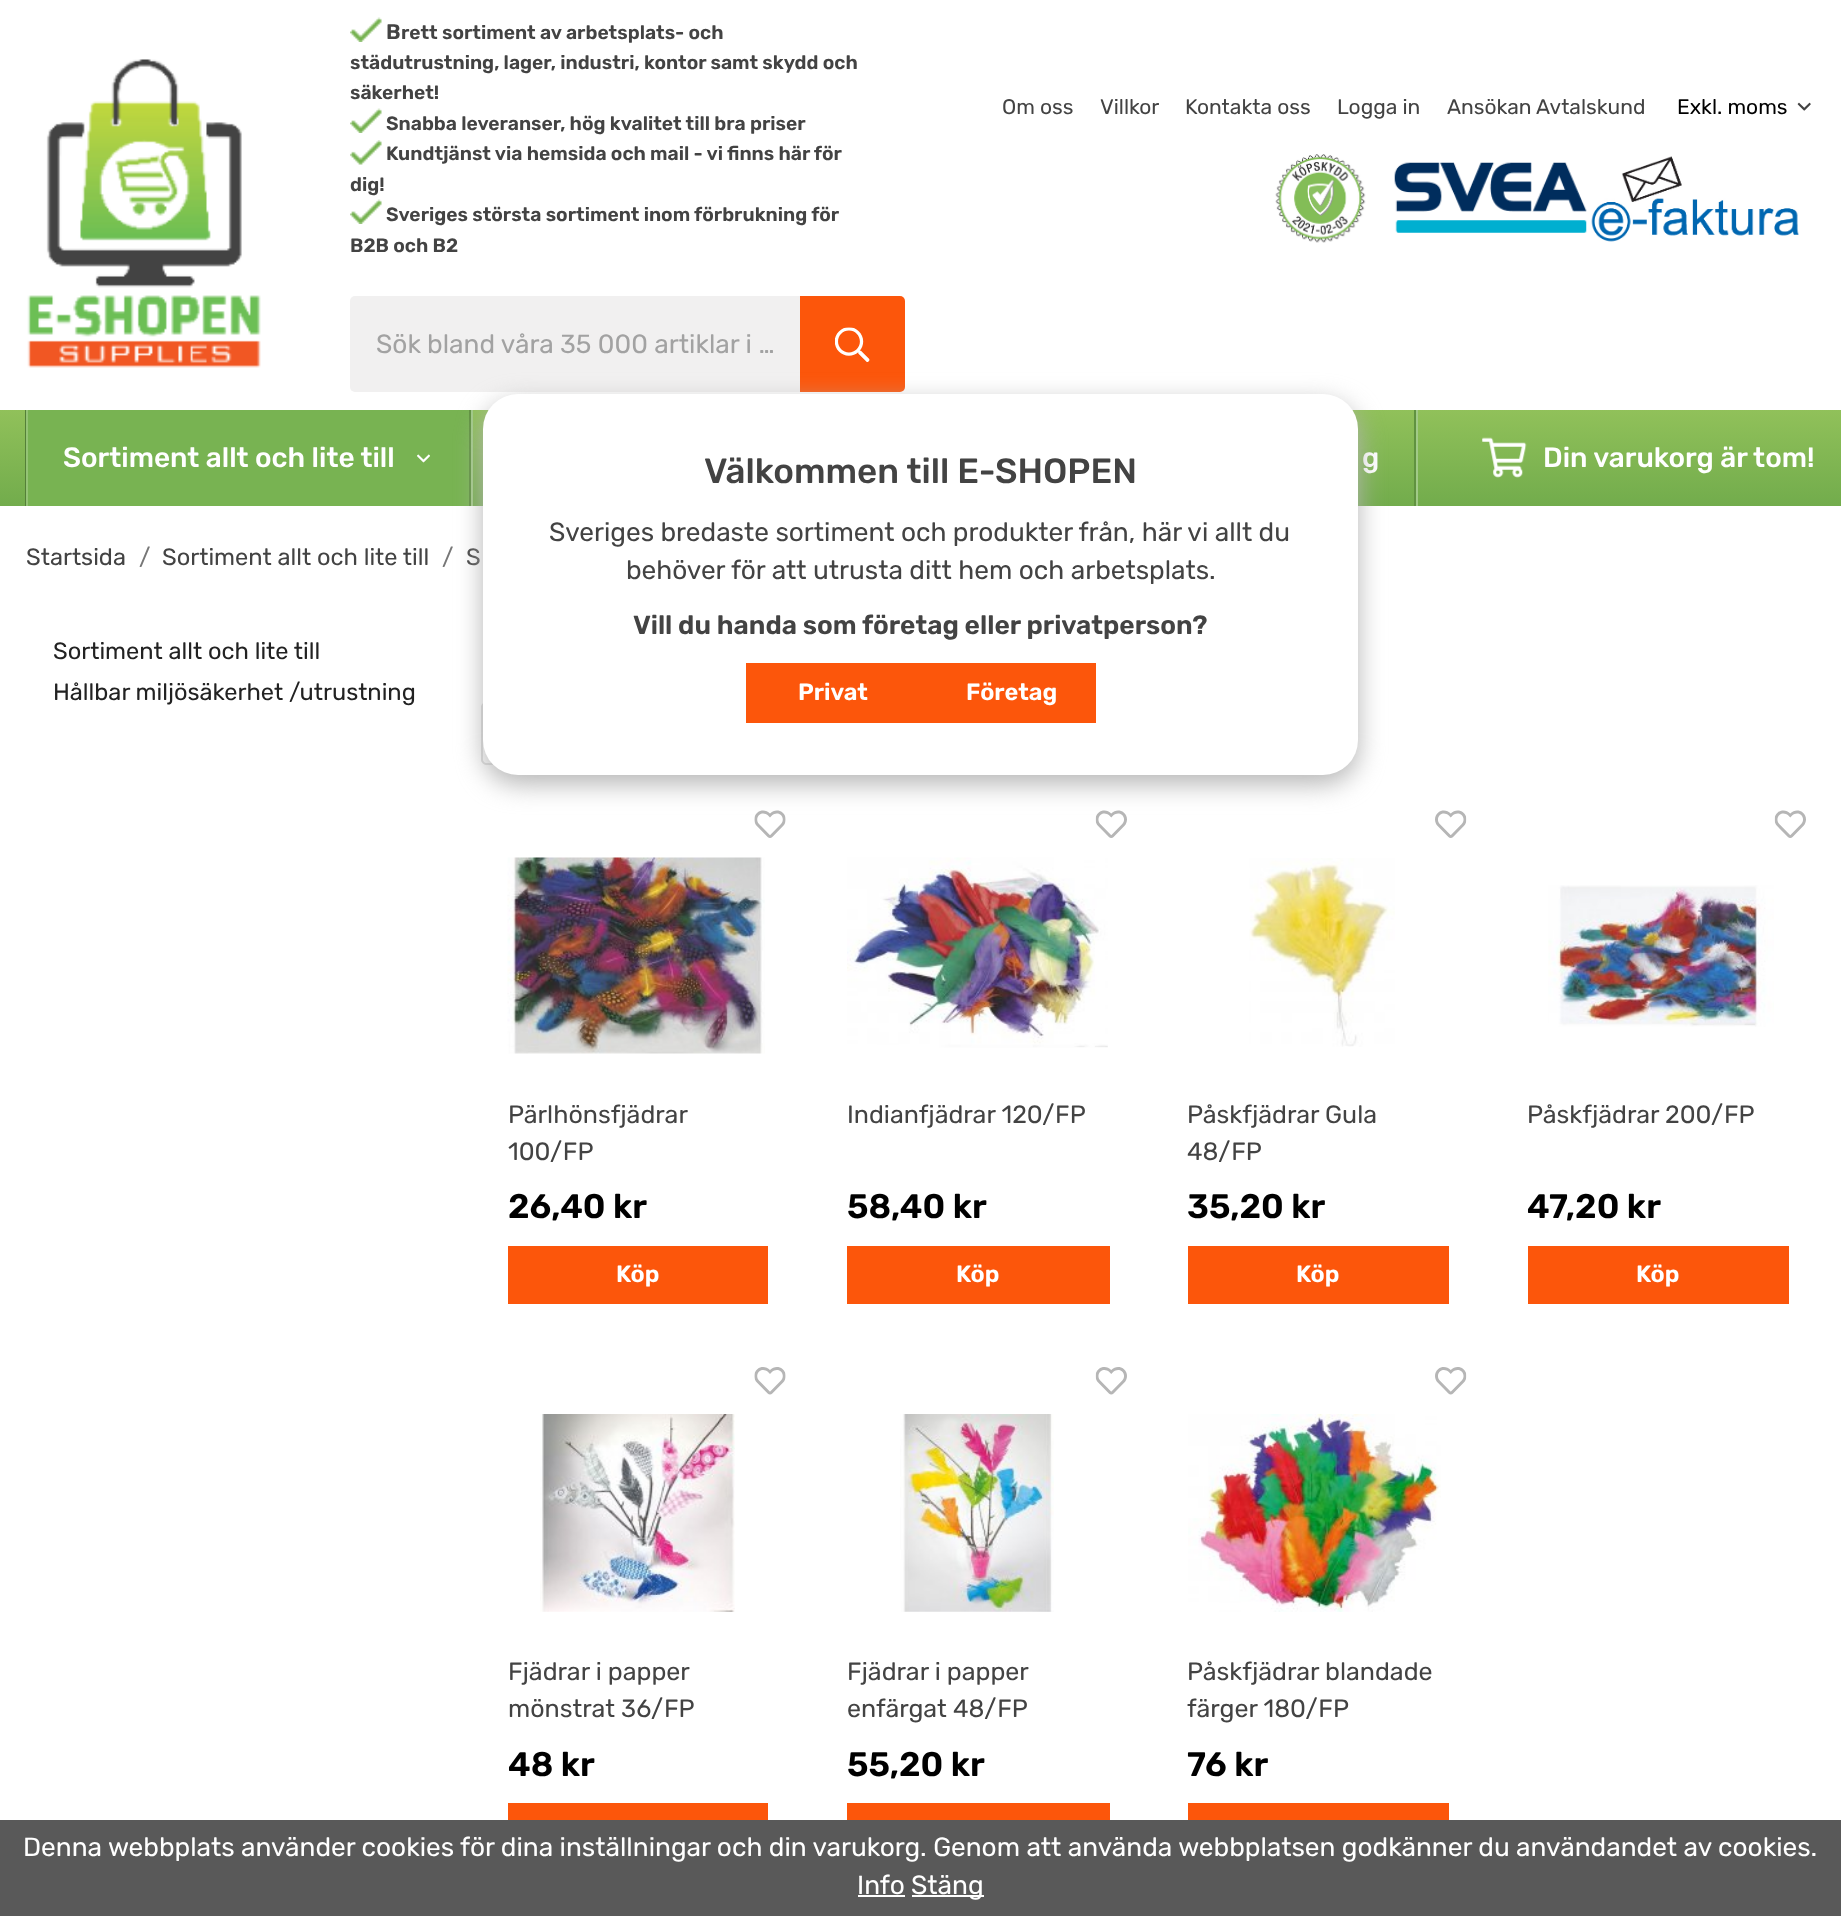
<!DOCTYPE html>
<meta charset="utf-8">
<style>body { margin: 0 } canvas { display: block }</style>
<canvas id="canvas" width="1841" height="1916"></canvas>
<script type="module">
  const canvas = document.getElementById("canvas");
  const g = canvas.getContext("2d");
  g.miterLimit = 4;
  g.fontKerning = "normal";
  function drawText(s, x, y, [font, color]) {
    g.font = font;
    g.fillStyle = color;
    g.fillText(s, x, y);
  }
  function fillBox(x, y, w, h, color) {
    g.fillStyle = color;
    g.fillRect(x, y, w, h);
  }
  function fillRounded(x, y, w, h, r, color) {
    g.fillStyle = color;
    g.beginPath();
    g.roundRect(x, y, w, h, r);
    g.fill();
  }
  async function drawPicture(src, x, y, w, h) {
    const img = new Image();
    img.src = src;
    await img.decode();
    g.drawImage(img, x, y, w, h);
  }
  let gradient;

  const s1 = ["600 21px Rubik", "#434343"];
  const s2 = ["600 19.25px Rubik", "#434343"];
  const s3 = ["26.25px Rubik", "#A2A2A2"];
  const s4 = ["21px Rubik", "#434343"];
  const s5 = ["21px Rubik", "#000000"];
  const s6 = ["500 28px Rubik", "#FFFFFF"];
  const s7 = ["23.6px Rubik", "#434343"];
  const s8 = ["23.6px Rubik", "#777777"];
  const s9 = ["23.6px Rubik", "#222222"];
  const s10 = ["25px Rubik", "#434343"];
  const s11 = ["600 34px Rubik", "#000000"];
  const s12 = ["600 23.6px Rubik", "#FFFFFF"];
  const s13 = ["500 35px Rubik", "#434343"];
  const s14 = ["26.25px Rubik", "#434343"];
  const s15 = ["600 26.25px Rubik", "#434343"];
  const s16 = ["26.25px Rubik", "#FFFFFF"];

  fillBox(0, 0, 1841, 1916, "#FFFFFF");
  await drawPicture("pic1.png", 27, 59, 234, 309);
  await drawPicture("pic2.png", 350, 17, 32, 25);
  drawText("B", 386, 39, s1);
  drawText("rett sortiment av arbetsplats- och", 401, 39, s2);
  drawText("städutrustning, lager, industri, kontor samt skydd och", 350, 69, s2);
  drawText("säkerhet!", 350, 99, s2);
  await drawPicture("pic3.png", 350, 108, 32, 25);
  drawText("Snabba leveranser, hög kvalitet till bra priser", 386, 130, s2);
  await drawPicture("pic4.png", 350, 140, 32, 25);
  drawText("Kundtjänst via hemsida och mail - vi finns här för", 386, 160, s2);
  drawText("dig!", 350, 191, s2);
  await drawPicture("pic2.png", 350, 199, 32, 25);
  drawText("Sveriges största sortiment inom förbrukning för", 386, 221, s2);
  drawText("B2B och B2", 350, 252, s2);
  g.fillStyle = "#F1F0F0";
  g.beginPath();
  g.roundRect(350, 296, 450, 96, [5, 0, 0, 5]);
  g.fill();
  drawText("Sök bland våra 35 000 artiklar i …", 376, 353, s3);
  g.fillStyle = "#FC560B";
  g.beginPath();
  g.roundRect(800, 296, 105, 96, [0, 5, 5, 0]);
  g.fill();
  await drawPicture("pic5.png", 835, 327, 35, 35);
  drawText("Om oss", 1002, 114, s4);
  drawText("Villkor", 1100, 114, s4);
  drawText("Kontakta oss", 1185, 114, s4);
  drawText("Logga in", 1337, 114, s4);
  drawText("Ansökan Avtalskund", 1447, 114, s4);
  drawText("Exkl. moms", 1677, 114, s5);
  await drawPicture("pic6.png", 1797, 102, 14, 9);
  await drawPicture("pic7.png", 1275, 154, 91, 89);
  await drawPicture("pic8.png", 1394, 162, 193, 71);
  await drawPicture("pic9.png", 1591, 156, 208, 86);
  gradient = g.createLinearGradient(921, 409, 921, 506);
  gradient.addColorStop(0, "#91C15A");
  gradient.addColorStop(1, "#72AC4C");
  g.fillStyle = gradient;
  g.fillRect(0, 410, 1841, 96);
  g.fillStyle = "#548038";
  g.beginPath();
  g.moveTo(25, 410);
  g.lineTo(25, 506);
  g.lineTo(1414, 506);
  g.lineTo(26, 506);
  g.lineTo(26, 410);
  g.closePath();
  g.fill();
  fillBox(26, 410, 2, 96, "#94C375");
  g.fillStyle = "#A1CA87";
  g.beginPath();
  g.moveTo(30, 506);
  g.lineTo(473, 506);
  g.lineTo(473, 410);
  g.lineTo(471, 410);
  g.lineTo(471, 506);
  g.closePath();
  g.fill();
  fillBox(28, 410, 441, 96, "#78B352");
  fillBox(469, 410, 2, 96, "#609240");
  drawText("Sortiment allt och lite till", 63, 467, s6);
  await drawPicture("pic10.png", 417, 454, 13, 9);
  g.fillStyle = "#A1CA87";
  g.beginPath();
  g.moveTo(901, 506);
  g.lineTo(1418, 506);
  g.lineTo(1418, 410);
  g.lineTo(1416, 410);
  g.lineTo(1416, 506);
  g.closePath();
  g.fill();
  fillBox(1414, 410, 2, 96, "#609240");
  drawText("g", 1362, 467, s6);
  await drawPicture("pic11.png", 1482, 437, 45, 41);
  drawText("Din varukorg är tom!", 1543, 467, s6);
  drawText("Startsida", 26, 565, s7);
  drawText("/", 139, 565, s8);
  drawText("Sortiment allt och lite till", 162, 565, s7);
  drawText("/", 442, 565, s8);
  drawText("S", 466, 565, s7);
  drawText("Sortiment allt och lite till", 53, 659, s9);
  drawText("Hållbar miljösäkerhet /utrustning", 53, 700, s9);
  g.fillStyle = "#D9D9D9";
  g.beginPath();
  g.moveTo(486, 702);
  g.lineTo(658, 702);
  g.lineTo(658, 765);
  g.lineTo(486, 765);
  g.bezierCurveTo(484, 765, 481, 762, 481, 760);
  g.lineTo(481, 707);
  g.bezierCurveTo(481, 704, 484, 702, 486, 702);
  g.closePath();
  g.moveTo(486, 704);
  g.lineTo(658, 704);
  g.lineTo(658, 763);
  g.lineTo(486, 763);
  g.bezierCurveTo(485, 763, 483, 761, 483, 760);
  g.lineTo(483, 707);
  g.bezierCurveTo(483, 705, 485, 704, 486, 704);
  g.closePath();
  g.fill("evenodd");
  await drawPicture("pic12.png", 754, 810, 32, 28);
  await drawPicture("pic13.png", 507, 857, 258, 197);
  drawText("Pärlhönsfjädrar", 508, 1123, s10);
  drawText("100/FP", 508, 1160, s10);
  drawText("26,40 kr", 508, 1218, s11);
  fillBox(508, 1246, 260, 58, "#FC560B");
  drawText("Köp", 616, 1282, s12);
  await drawPicture("pic14.png", 1095, 810, 32, 28);
  await drawPicture("pic15.png", 847, 857, 261, 191);
  drawText("Indianfjädrar 120/FP", 847, 1123, s10);
  drawText("58,40 kr", 847, 1218, s11);
  fillBox(847, 1246, 263, 58, "#FC560B");
  drawText("Köp", 956, 1282, s12);
  await drawPicture("pic16.png", 1435, 810, 32, 28);
  await drawPicture("pic17.png", 1249, 858, 146, 189);
  drawText("Påskfjädrar Gula", 1187, 1123, s10);
  drawText("48/FP", 1187, 1160, s10);
  drawText("35,20 kr", 1187, 1218, s11);
  fillBox(1188, 1246, 261, 58, "#FC560B");
  drawText("Köp", 1296, 1282, s12);
  await drawPicture("pic18.png", 1774, 810, 32, 28);
  await drawPicture("pic19.png", 1548, 885, 226, 142);
  drawText("Påskfjädrar 200/FP", 1527, 1123, s10);
  drawText("47,20 kr", 1527, 1218, s11);
  fillBox(1528, 1246, 261, 58, "#FC560B");
  drawText("Köp", 1636, 1282, s12);
  await drawPicture("pic20.png", 754, 1367, 32, 28);
  await drawPicture("pic21.png", 540, 1414, 195, 198);
  drawText("Fjädrar i papper", 508, 1680, s10);
  drawText("mönstrat 36/FP", 508, 1717, s10);
  drawText("48 kr", 508, 1776, s11);
  fillBox(508, 1803, 260, 17, "#FC560B");
  await drawPicture("pic22.png", 1095, 1367, 32, 28);
  await drawPicture("pic23.png", 900, 1414, 154, 198);
  drawText("Fjädrar i papper", 847, 1680, s10);
  drawText("enfärgat 48/FP", 847, 1717, s10);
  drawText("55,20 kr", 847, 1776, s11);
  fillBox(847, 1803, 263, 17, "#FC560B");
  await drawPicture("pic24.png", 1435, 1367, 32, 28);
  await drawPicture("pic25.png", 1188, 1414, 253, 198);
  drawText("Påskfjädrar blandade", 1187, 1680, s10);
  drawText("färger 180/FP", 1187, 1717, s10);
  drawText("76 kr", 1187, 1776, s11);
  fillBox(1188, 1803, 261, 17, "#FC560B");
  g.fillStyle = "#B5B5B5";
  g.filter = "blur(13px)";
  g.beginPath();
  g.roundRect(483, 403, 875, 381, 35);
  g.fill();
  g.filter = "none";
  fillRounded(483, 394, 875, 381, 35, "#FFFFFF");
  drawText("Välkommen till E-SHOPEN", 704, 483, s13);
  drawText("Sveriges bredaste sortiment och produkter från, här vi allt du", 549, 541, s14);
  drawText("behöver för att utrusta ditt hem och arbetsplats.", 626, 579, s14);
  drawText("Vill du handa som företag eller privatperson?", 633, 634, s15);
  fillBox(746, 663, 350, 60, "#FC560B");
  drawText("Privat", 798, 700, s12);
  drawText("Företag", 966, 700, s12);
  fillBox(0, 1820, 1841, 96, "#595959");
  drawText("Denna webbplats använder cookies för dina inställningar och din varukorg. Genom att använda webbplatsen godkänner du användandet av cookies.", 23, 1856, s16);
  drawText("Info", 857, 1894, s16);
  fillBox(858, 1895, 47, 2, "#FFFFFF");
  fillBox(912, 1895, 72, 2, "#FFFFFF");
  drawText("Stäng", 911, 1894, s16);
</script>
